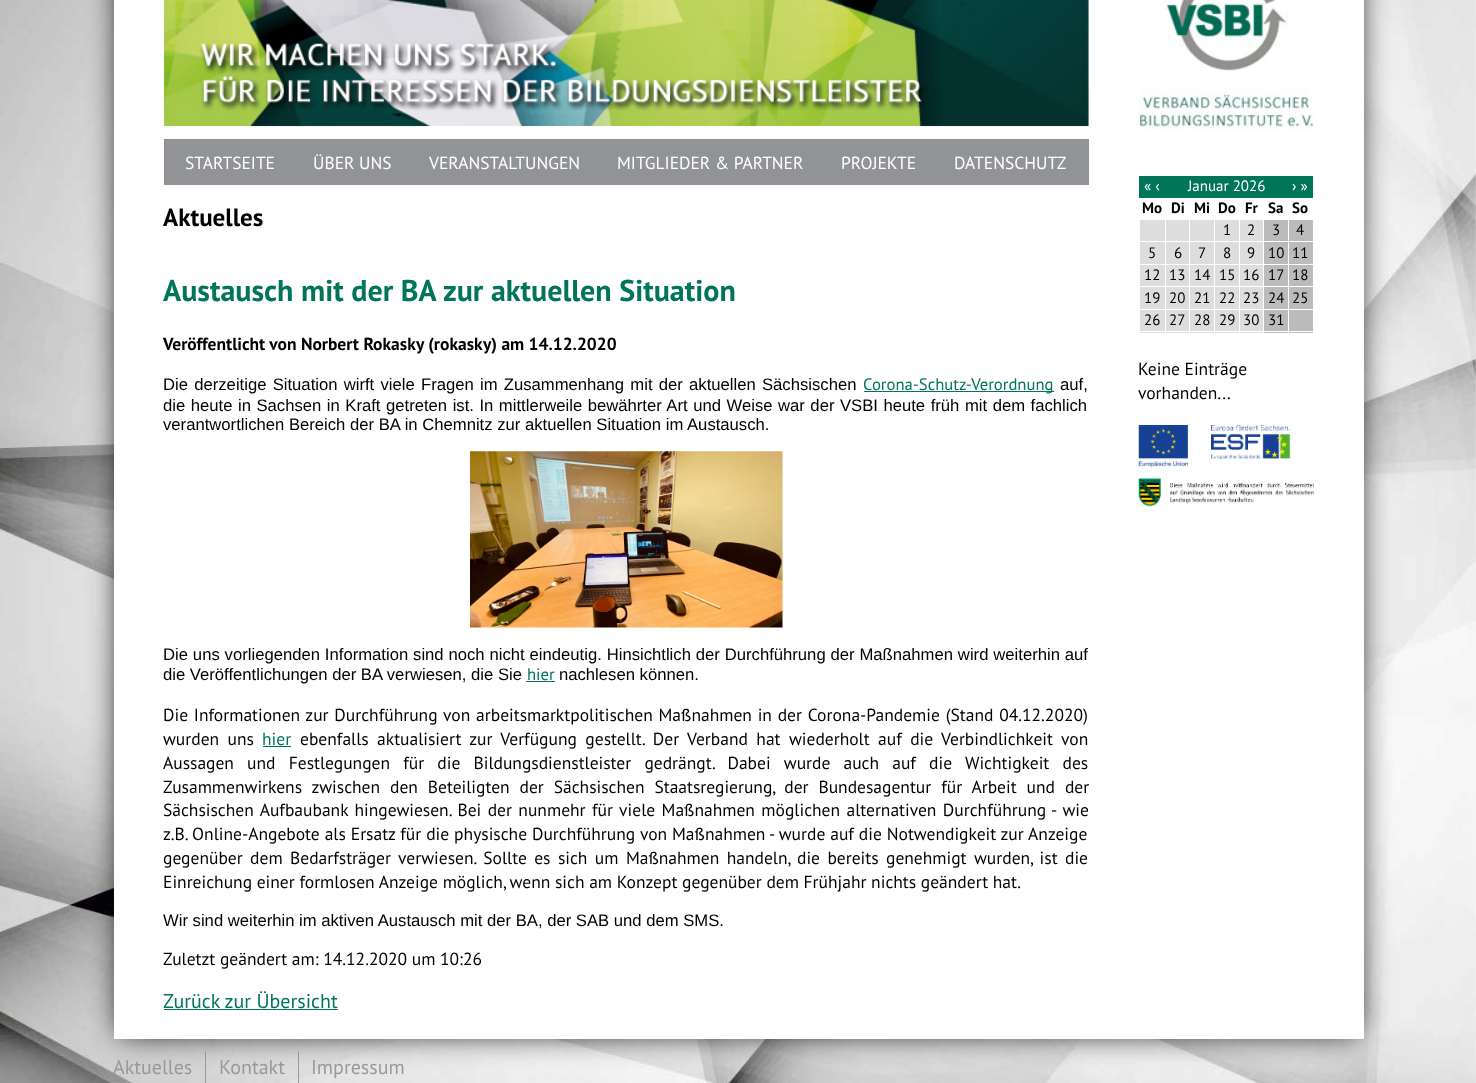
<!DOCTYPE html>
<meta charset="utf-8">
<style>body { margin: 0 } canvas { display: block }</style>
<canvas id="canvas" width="1476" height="1083"></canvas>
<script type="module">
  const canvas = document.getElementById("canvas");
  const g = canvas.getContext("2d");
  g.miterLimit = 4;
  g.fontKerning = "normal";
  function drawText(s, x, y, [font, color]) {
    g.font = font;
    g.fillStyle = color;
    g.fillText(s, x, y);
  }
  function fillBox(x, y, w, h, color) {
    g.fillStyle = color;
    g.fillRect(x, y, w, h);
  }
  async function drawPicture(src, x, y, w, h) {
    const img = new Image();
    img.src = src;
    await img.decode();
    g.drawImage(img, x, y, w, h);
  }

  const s1 = ["17.5px PT Sans", "#FFFFFF"];
  const s2 = ["bold 25px PT Sans", "#000000"];
  const s3 = ["bold 30px PT Sans", "#00755A"];
  const s4 = ["bold 17.5px PT Sans", "#000000"];
  const s5 = ["16.67px Liberation Sans", "#000000"];
  const s6 = ["16.67px PT Sans", "#00755A"];
  const s7 = ["17.5px PT Sans", "#000000"];
  const s8 = ["17.5px PT Sans", "#00755A"];
  const s9 = ["20px PT Sans", "#00755A"];
  const s10 = ["15px PT Sans", "#FFFFFF"];
  const s11 = ["bold 15px PT Sans", "#000000"];
  const s12 = ["15px PT Sans", "#000000"];
  const s13 = ["20px PT Sans", "#999999"];

  fillBox(0, 0, 1476, 1083, "#FFFFFF");
  await drawPicture("pic1.png", 0, 0, 1476, 1083);
  g.fillStyle = "#000000";
  g.filter = "blur(15.5px)";
  g.beginPath();
  g.rect(120, -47, 1238, 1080);
  g.fill();
  g.filter = "none";
  fillBox(114, 0, 1250, 1039, "#FFFFFF");
  await drawPicture("pic2.png", 163, 0, 926, 127);
  fillBox(164, 139, 925, 46, "#929397");
  drawText("STARTSEITE", 185, 169, s1);
  drawText("ÜBER UNS", 313, 169, s1);
  drawText("VERANSTALTUNGEN", 429, 169, s1);
  drawText("MITGLIEDER & PARTNER", 617, 169, s1);
  drawText("PROJEKTE", 841, 169, s1);
  drawText("DATENSCHUTZ", 954, 169, s1);
  drawText("Aktuelles", 163, 226, s2);
  drawText("Austausch mit der BA zur aktuellen Situation", 163, 301, s3);
  drawText("Veröffentlicht von Norbert Rokasky (rokasky) am 14.12.2020", 163, 350, s4);
  g.wordSpacing = "1.6px";
  drawText("Die derzeitige Situation wirft viele Fragen im Zusammenhang mit der aktuellen Sächsischen", 163, 390, s5);
  fillBox(864, 391, 190, 1, "#00755A");
  g.wordSpacing = "0px";
  drawText("Corona-Schutz-Verordnung", 863, 390, s6);
  drawText("auf,", 1060, 390, s5);
  g.wordSpacing = "0.9px";
  drawText("die heute in Sachsen in Kraft getreten ist. In mittlerweile bewährter Art und Weise war der VSBI heute früh mit dem fachlich", 163, 411, s5);
  g.wordSpacing = "0px";
  drawText("verantwortlichen Bereich der BA in Chemnitz zur aktuellen Situation im Austausch.", 163, 430, s5);
  await drawPicture("pic3.png", 470, 451, 313, 177);
  g.wordSpacing = "0.25px";
  drawText("Die uns vorliegenden Information sind noch nicht eindeutig. Hinsichtlich der Durchführung der Maßnahmen wird weiterhin auf", 163, 660, s5);
  g.wordSpacing = "0px";
  drawText("die Veröffentlichungen der BA verwiesen, die Sie", 163, 680, s5);
  drawText("hier", 527, 680, s6);
  fillBox(526, 681, 29, 1, "#00755A");
  drawText("nachlesen können.", 559, 680, s5);
  g.wordSpacing = "1.1px";
  drawText("Die Informationen zur Durchführung von arbeitsmarktpolitischen Maßnahmen in der Corona-Pandemie (Stand 04.12.2020)", 163, 721, s7);
  g.wordSpacing = "3.75px";
  drawText("wurden uns", 163, 745, s7);
  g.wordSpacing = "0px";
  drawText("hier", 262, 745, s8);
  fillBox(263, 746, 28, 1, "#00755A");
  g.wordSpacing = "3.75px";
  drawText("ebenfalls aktualisiert zur Verfügung gestellt. Der Verband hat wiederholt auf die Verbindlichkeit von", 300, 745, s7);
  g.wordSpacing = "8.5px";
  drawText("Aussagen und Festlegungen für die Bildungsdienstleister gedrängt. Dabei wurde auch auf die Wichtigkeit des", 163, 769, s7);
  g.wordSpacing = "5.25px";
  drawText("Zusammenwirkens zwischen den Beteiligten der Sächsischen Staatsregierung, der Bundesagentur für Arbeit und der", 163, 793, s7);
  g.wordSpacing = "1.75px";
  drawText("Sächsischen Aufbaubank hingewiesen. Bei der nunmehr für viele Maßnahmen möglichen alternativen Durchführung - wie", 163, 816, s7);
  g.wordSpacing = "0.25px";
  drawText("z.B. Online-Angebote als Ersatz für die physische Durchführung von Maßnahmen - wurde auf die Notwendigkeit zur Anzeige", 163, 840, s7);
  g.wordSpacing = "2.75px";
  drawText("gegenüber dem Bedarfsträger verwiesen. Sollte es sich um Maßnahmen handeln, die bereits genehmigt wurden, ist die", 163, 864, s7);
  g.wordSpacing = "0px";
  drawText("Einreichung einer formlosen Anzeige möglich, wenn sich am Konzept gegenüber dem Frühjahr nichts geändert hat.", 163, 888, s7);
  drawText("Wir sind weiterhin im aktiven Austausch mit der BA, der SAB und dem SMS.", 163, 926, s5);
  drawText("Zuletzt geändert am: 14.12.2020 um 10:26", 163, 965, s7);
  drawText("Zurück zur Übersicht", 163, 1008, s9);
  fillBox(164, 1009, 174, 1, "#00755A");
  await drawPicture("pic4.png", 1138, 0, 176, 130);
  fillBox(1139, 176, 174, 22, "#00755A");
  drawText("« ‹", 1144, 191, s10);
  drawText("Januar 2026", 1188, 191, s10);
  drawText("› »", 1292, 191, s10);
  drawText("Mo", 1142, 213, s11);
  drawText("Di", 1171, 213, s11);
  drawText("Mi", 1194, 213, s11);
  drawText("Do", 1218, 213, s11);
  drawText("Fr", 1245, 213, s11);
  drawText("Sa", 1268, 213, s11);
  drawText("So", 1292, 213, s11);
  fillBox(1140, 220, 25, 44, "#DDDDDD");
  fillBox(1166, 220, 23, 44, "#DDDDDD");
  fillBox(1190, 220, 24, 44, "#DDDDDD");
  fillBox(1215, 220, 24, 44, "#DDDDDD");
  drawText("1", 1223, 235, s12);
  fillBox(1240, 220, 23, 44, "#DDDDDD");
  drawText("2", 1247, 235, s12);
  fillBox(1264, 220, 24, 44, "#BBBBBB");
  drawText("3", 1272, 235, s12);
  fillBox(1289, 220, 24, 44, "#BBBBBB");
  drawText("4", 1296, 235, s12);
  drawText("5", 1148, 258, s12);
  drawText("6", 1174, 258, s12);
  drawText("7", 1198, 258, s12);
  drawText("8", 1223, 258, s12);
  drawText("9", 1247, 258, s12);
  drawText("10", 1268, 258, s12);
  fillBox(1139, 241, 175, 1, "#FFFFFF");
  drawText("11", 1292, 258, s12);
  fillBox(1140, 265, 25, 44, "#DDDDDD");
  drawText("12", 1144, 280, s12);
  fillBox(1166, 265, 23, 44, "#DDDDDD");
  drawText("13", 1169, 280, s12);
  fillBox(1190, 265, 24, 44, "#DDDDDD");
  drawText("14", 1194, 280, s12);
  fillBox(1215, 265, 24, 44, "#DDDDDD");
  drawText("15", 1219, 280, s12);
  fillBox(1240, 265, 23, 44, "#DDDDDD");
  drawText("16", 1243, 280, s12);
  fillBox(1264, 265, 24, 44, "#BBBBBB");
  drawText("17", 1268, 280, s12);
  fillBox(1289, 265, 24, 44, "#BBBBBB");
  drawText("18", 1292, 280, s12);
  drawText("19", 1144, 303, s12);
  drawText("20", 1169, 303, s12);
  drawText("21", 1194, 303, s12);
  drawText("22", 1219, 303, s12);
  drawText("23", 1243, 303, s12);
  drawText("24", 1268, 303, s12);
  fillBox(1139, 286, 175, 1, "#FFFFFF");
  drawText("25", 1292, 303, s12);
  fillBox(1289, 310, 24, 23, "#BBBBBB");
  fillBox(1140, 310, 25, 23, "#DDDDDD");
  fillBox(1166, 310, 23, 23, "#DDDDDD");
  fillBox(1190, 310, 24, 23, "#DDDDDD");
  fillBox(1215, 310, 24, 23, "#DDDDDD");
  fillBox(1240, 310, 23, 23, "#DDDDDD");
  fillBox(1264, 310, 24, 23, "#BBBBBB");
  fillBox(1139, 331, 175, 1, "#FFFFFF");
  drawText("26", 1144, 325, s12);
  drawText("27", 1169, 325, s12);
  drawText("28", 1194, 325, s12);
  drawText("29", 1219, 325, s12);
  drawText("30", 1243, 325, s12);
  drawText("31", 1268, 325, s12);
  drawText("Keine Einträge", 1138, 375, s7);
  drawText("vorhanden...", 1138, 399, s7);
  await drawPicture("pic5.png", 1138, 425, 176, 82);
  drawText("Aktuelles", 113, 1074, s13);
  fillBox(205, 1051, 1, 32, "#999999");
  drawText("Kontakt", 219, 1074, s13);
  fillBox(298, 1051, 1, 32, "#999999");
  drawText("Impressum", 311, 1074, s13);
</script>
